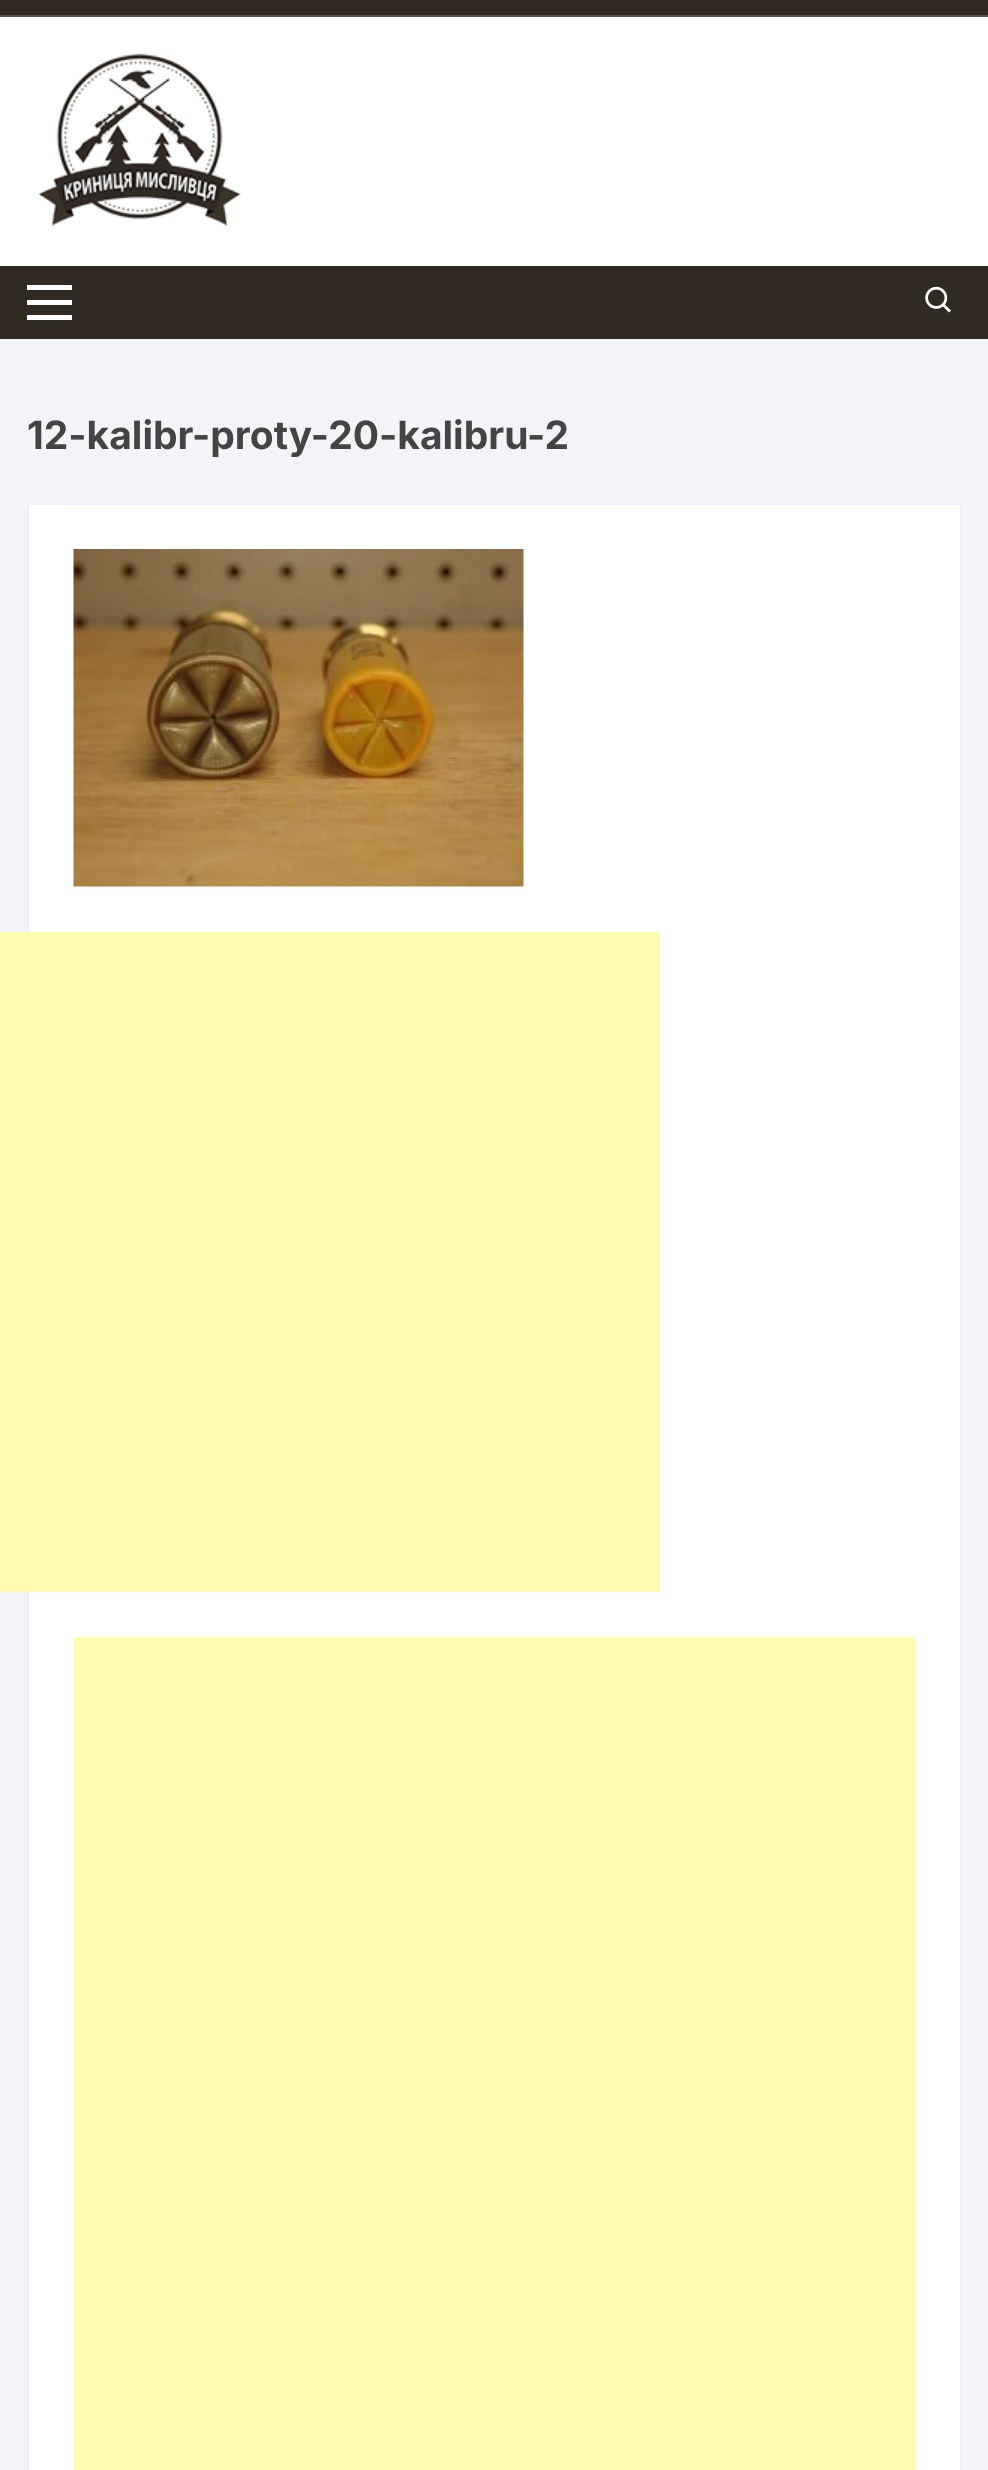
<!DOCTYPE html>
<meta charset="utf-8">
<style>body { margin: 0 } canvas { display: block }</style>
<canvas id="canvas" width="988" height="2470"></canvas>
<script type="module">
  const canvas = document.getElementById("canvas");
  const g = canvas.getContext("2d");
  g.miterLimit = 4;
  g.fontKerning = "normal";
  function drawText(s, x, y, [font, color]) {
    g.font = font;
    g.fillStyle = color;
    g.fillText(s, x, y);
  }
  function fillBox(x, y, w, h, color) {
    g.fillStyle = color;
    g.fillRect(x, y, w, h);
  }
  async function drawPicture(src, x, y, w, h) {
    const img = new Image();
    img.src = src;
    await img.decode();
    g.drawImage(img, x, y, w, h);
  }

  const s1 = ["bold 39px Inter", "#444444"];

  fillBox(0, 0, 988, 2470, "#F3F4F8");
  fillBox(0, 17, 988, 249, "#FFFFFF");
  fillBox(0, 0, 988, 15, "#302A23");
  fillBox(0, 15, 988, 2, "#59554F");
  await drawPicture("pic1.png", 38, 53, 203, 174);
  fillBox(0, 266, 988, 73, "#302A23");
  fillBox(27, 285, 45, 5, "#FFFFFF");
  fillBox(27, 300, 45, 5, "#FFFFFF");
  fillBox(27, 315, 45, 5, "#FFFFFF");
  await drawPicture("pic2.png", 925, 286, 26, 27);
  drawText("12-kalibr-proty-20-kalibru-2", 27, 449, s1);
  g.fillStyle = "#FFFFFF";
  g.beginPath();
  g.rect(28, 504, 933, 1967);
  g.fill();
  g.strokeStyle = "#EEF1FD";
  g.lineWidth = 2;
  g.stroke();
  await drawPicture("pic3.png", 73, 549, 451, 338);
  fillBox(0, 932, 660, 660, "#FFFBAE");
  fillBox(74, 1637, 841, 833, "#FFFBAE");
</script>
